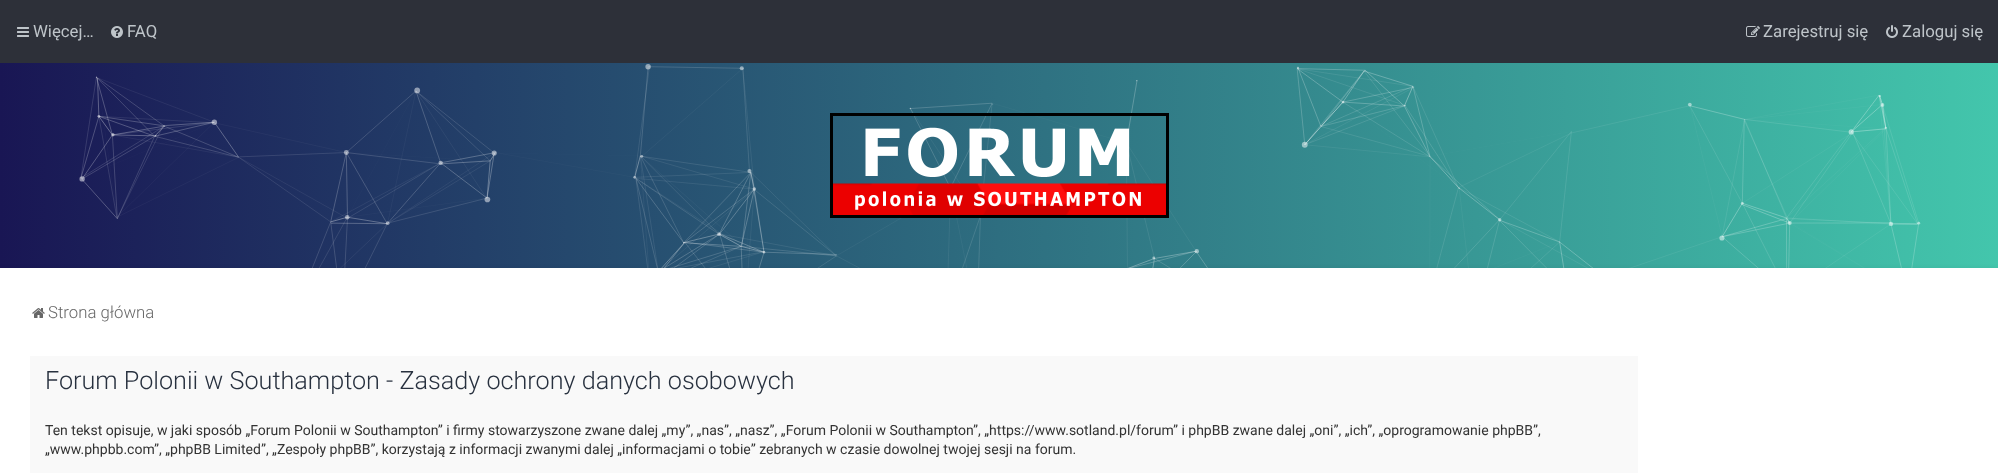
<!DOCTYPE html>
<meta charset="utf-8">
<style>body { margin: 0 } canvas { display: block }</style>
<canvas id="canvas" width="1998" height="473"></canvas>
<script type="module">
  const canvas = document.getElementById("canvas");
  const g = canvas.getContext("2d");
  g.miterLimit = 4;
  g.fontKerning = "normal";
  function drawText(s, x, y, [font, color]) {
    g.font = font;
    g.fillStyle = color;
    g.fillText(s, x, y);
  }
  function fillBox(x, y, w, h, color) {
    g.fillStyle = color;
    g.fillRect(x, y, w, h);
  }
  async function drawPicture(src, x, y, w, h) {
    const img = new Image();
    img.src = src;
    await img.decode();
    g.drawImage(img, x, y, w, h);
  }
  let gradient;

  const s1 = ["16.75px Roboto", "#BEC4C9"];
  const s2 = ["300 16.75px Roboto", "#676767"];
  const s3 = ["300 25.2px Roboto", "#28313F"];
  const s4 = ["14px Roboto", "#333333"];

  fillBox(0, 0, 1998, 473, "#FFFFFF");
  fillBox(0, 0, 1998, 63, "#2D3039");
  await drawPicture("pic1.png", 17, 27, 12, 10);
  drawText("Więcej…", 33, 37, s1);
  await drawPicture("pic2.png", 111, 26, 12, 12);
  drawText("FAQ", 127, 37, s1);
  await drawPicture("pic3.png", 1746, 26, 14, 11);
  drawText("Zarejestruj się", 1763, 37, s1);
  await drawPicture("pic4.png", 1886, 25, 12, 13);
  drawText("Zaloguj się", 1902, 37, s1);
  gradient = g.createLinearGradient(0, 191, 1998, 190);
  gradient.addColorStop(0, "#191654");
  gradient.addColorStop(1, "#43C6AC");
  g.fillStyle = gradient;
  g.fillRect(0, 63, 1998, 205);
  await drawPicture("pic5.png", 79, 64, 1842, 204);
  await drawPicture("pic6.png", 830, 113, 339, 105);
  g.fillStyle = "rgba(0, 0, 0, 0.05)";
  g.filter = "blur(2.5px)";
  g.beginPath();
  g.rect(0, 268, 1998, 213);
  g.fill();
  g.filter = "none";
  fillBox(0, 268, 1998, 205, "#FFFFFF");
  await drawPicture("pic7.png", 32, 308, 13, 10);
  drawText("Strona główna", 48, 318, s2);
  fillBox(30, 356, 1608, 117, "#F9F9F9");
  g.save();
  g.beginPath();
  g.rect(45, 371, 1578, 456);
  g.clip();
  drawText("Forum Polonii w Southampton - Zasady ochrony danych osobowych", 45, 389, s3);
  g.restore();
  drawText("Ten tekst opisuje, w jaki sposób „Forum Polonii w Southampton” i firmy stowarzyszone zwane dalej „my”, „nas”, „nasz”, „Forum Polonii w Southampton”, „https://www.sotland.pl/forum” i phpBB zwane dalej „oni”, „ich”, „oprogramowanie phpBB”,", 45, 435, s4);
  drawText("„www.phpbb.com”, „phpBB Limited”, „Zespoły phpBB”, korzystają z informacji zwanymi dalej „informacjami o tobie” zebranych w czasie dowolnej twojej sesji na forum.", 45, 454, s4);
</script>
